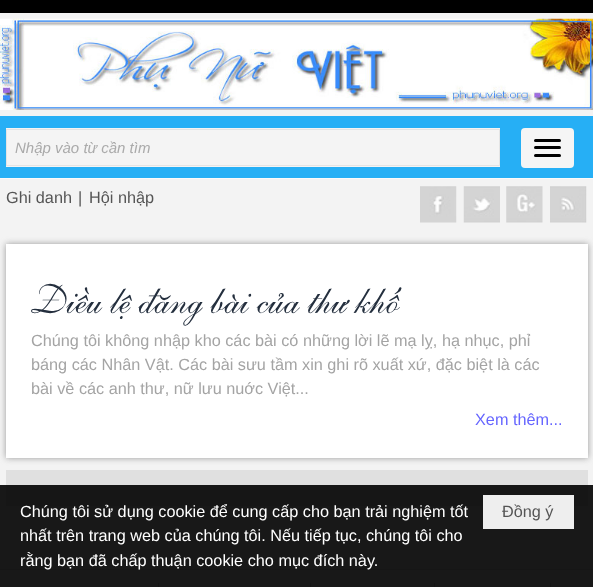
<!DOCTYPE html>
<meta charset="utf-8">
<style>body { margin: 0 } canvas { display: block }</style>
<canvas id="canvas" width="593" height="587"></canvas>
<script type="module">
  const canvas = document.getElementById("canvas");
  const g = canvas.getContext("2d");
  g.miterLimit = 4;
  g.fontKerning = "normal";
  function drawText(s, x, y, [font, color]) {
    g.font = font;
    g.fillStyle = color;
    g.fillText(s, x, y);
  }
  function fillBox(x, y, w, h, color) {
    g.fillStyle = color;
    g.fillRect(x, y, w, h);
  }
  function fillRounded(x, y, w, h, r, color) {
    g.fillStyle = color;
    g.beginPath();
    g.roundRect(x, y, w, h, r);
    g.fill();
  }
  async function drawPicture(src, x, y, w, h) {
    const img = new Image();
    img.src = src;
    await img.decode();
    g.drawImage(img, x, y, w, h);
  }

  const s1 = ["italic 15px Liberation Sans", "#AAAAAA"];
  const s2 = ["16.25px Liberation Sans", "#555555"];
  const s3 = ["italic 40px 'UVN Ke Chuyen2'", "#242F3E"];
  const s4 = ["16.25px Liberation Sans", "#A4A4A4"];
  const s5 = ["16.25px Liberation Sans", "#6666FF"];
  const s6 = ["16.25px Liberation Sans", "#FFFFFF"];

  fillBox(0, 0, 593, 587, "#F3F3F3");
  fillBox(0, 0, 593, 13, "#000000");
  await drawPicture("pic1.png", 0, 18, 593, 92);
  fillBox(0, 116, 593, 62, "#26AFF5");
  fillBox(0, 178, 593, 1, "#FAFAFA");
  fillRounded(521, 128, 53, 40, 4, "#F5F5F5");
  fillRounded(534, 139, 27, 3, 1.5, "#000000");
  fillRounded(534, 146, 27, 3, 1.5, "#000000");
  fillRounded(534, 154, 27, 3, 1.5, "#000000");
  fillBox(6, 128, 494, 39, "#F4F4F4");
  g.strokeStyle = "#E4E4E4";
  g.strokeRect(6.5, 129.5, 493, 36);
  drawText("Nhập vào từ cần tìm", 15, 153, s1);
  drawText("Ghi danh", 6, 203, s2);
  drawText("|", 78, 203, s2);
  drawText("Hội nhập", 89, 203, s2);
  await drawPicture("pic2.png", 420, 186, 37, 37);
  await drawPicture("pic3.png", 463, 186, 37, 37);
  await drawPicture("pic4.png", 506, 186, 37, 37);
  await drawPicture("pic5.png", 550, 186, 37, 37);
  g.fillStyle = "#999999";
  g.filter = "blur(3px)";
  g.beginPath();
  g.rect(6, 244, 582, 214);
  g.fill();
  g.filter = "none";
  fillBox(6, 244, 582, 214, "#FFFFFF");
  drawText("Điều lệ đăng bài của thư khố", 31, 313, s3);
  drawText("Chúng tôi không nhập kho các bài có những lời lẽ mạ lỵ, hạ nhục, phỉ", 31, 346, s4);
  drawText("báng các Nhân Vật. Các bài sưu tầm xin ghi rõ xuất xứ, đặc biệt là các", 31, 370, s4);
  drawText("bài về các anh thư, nữ lưu nuớc Việt...", 31, 394, s4);
  drawText("Xem thêm...", 475, 425, s5);
  fillBox(6, 470, 582, 36, "#E0E0E0");
  fillBox(0, 569, 593, 1, "#DCDCDC");
  fillBox(158, 583, 1, 4, "#CCCCCC");
  fillBox(310, 583, 1, 4, "#CCCCCC");
  fillBox(434, 583, 1, 4, "#CCCCCC");
  fillBox(550, 583, 1, 4, "#CCCCCC");
  fillBox(0, 485, 593, 102, "rgba(0, 0, 0, 0.9)");
  drawText("Chúng tôi sử dụng cookie để cung cấp cho bạn trải nghiệm tốt", 20, 517, s6);
  drawText("nhất trên trang web của chúng tôi. Nếu tiếp tục, chúng tôi cho", 20, 541, s6);
  drawText("rằng bạn đã chấp thuận cookie cho mục đích này.", 20, 566, s6);
  fillBox(483, 495, 91, 34, "#EEEEEE");
  drawText("Đồng ý", 502, 517, s2);
</script>
